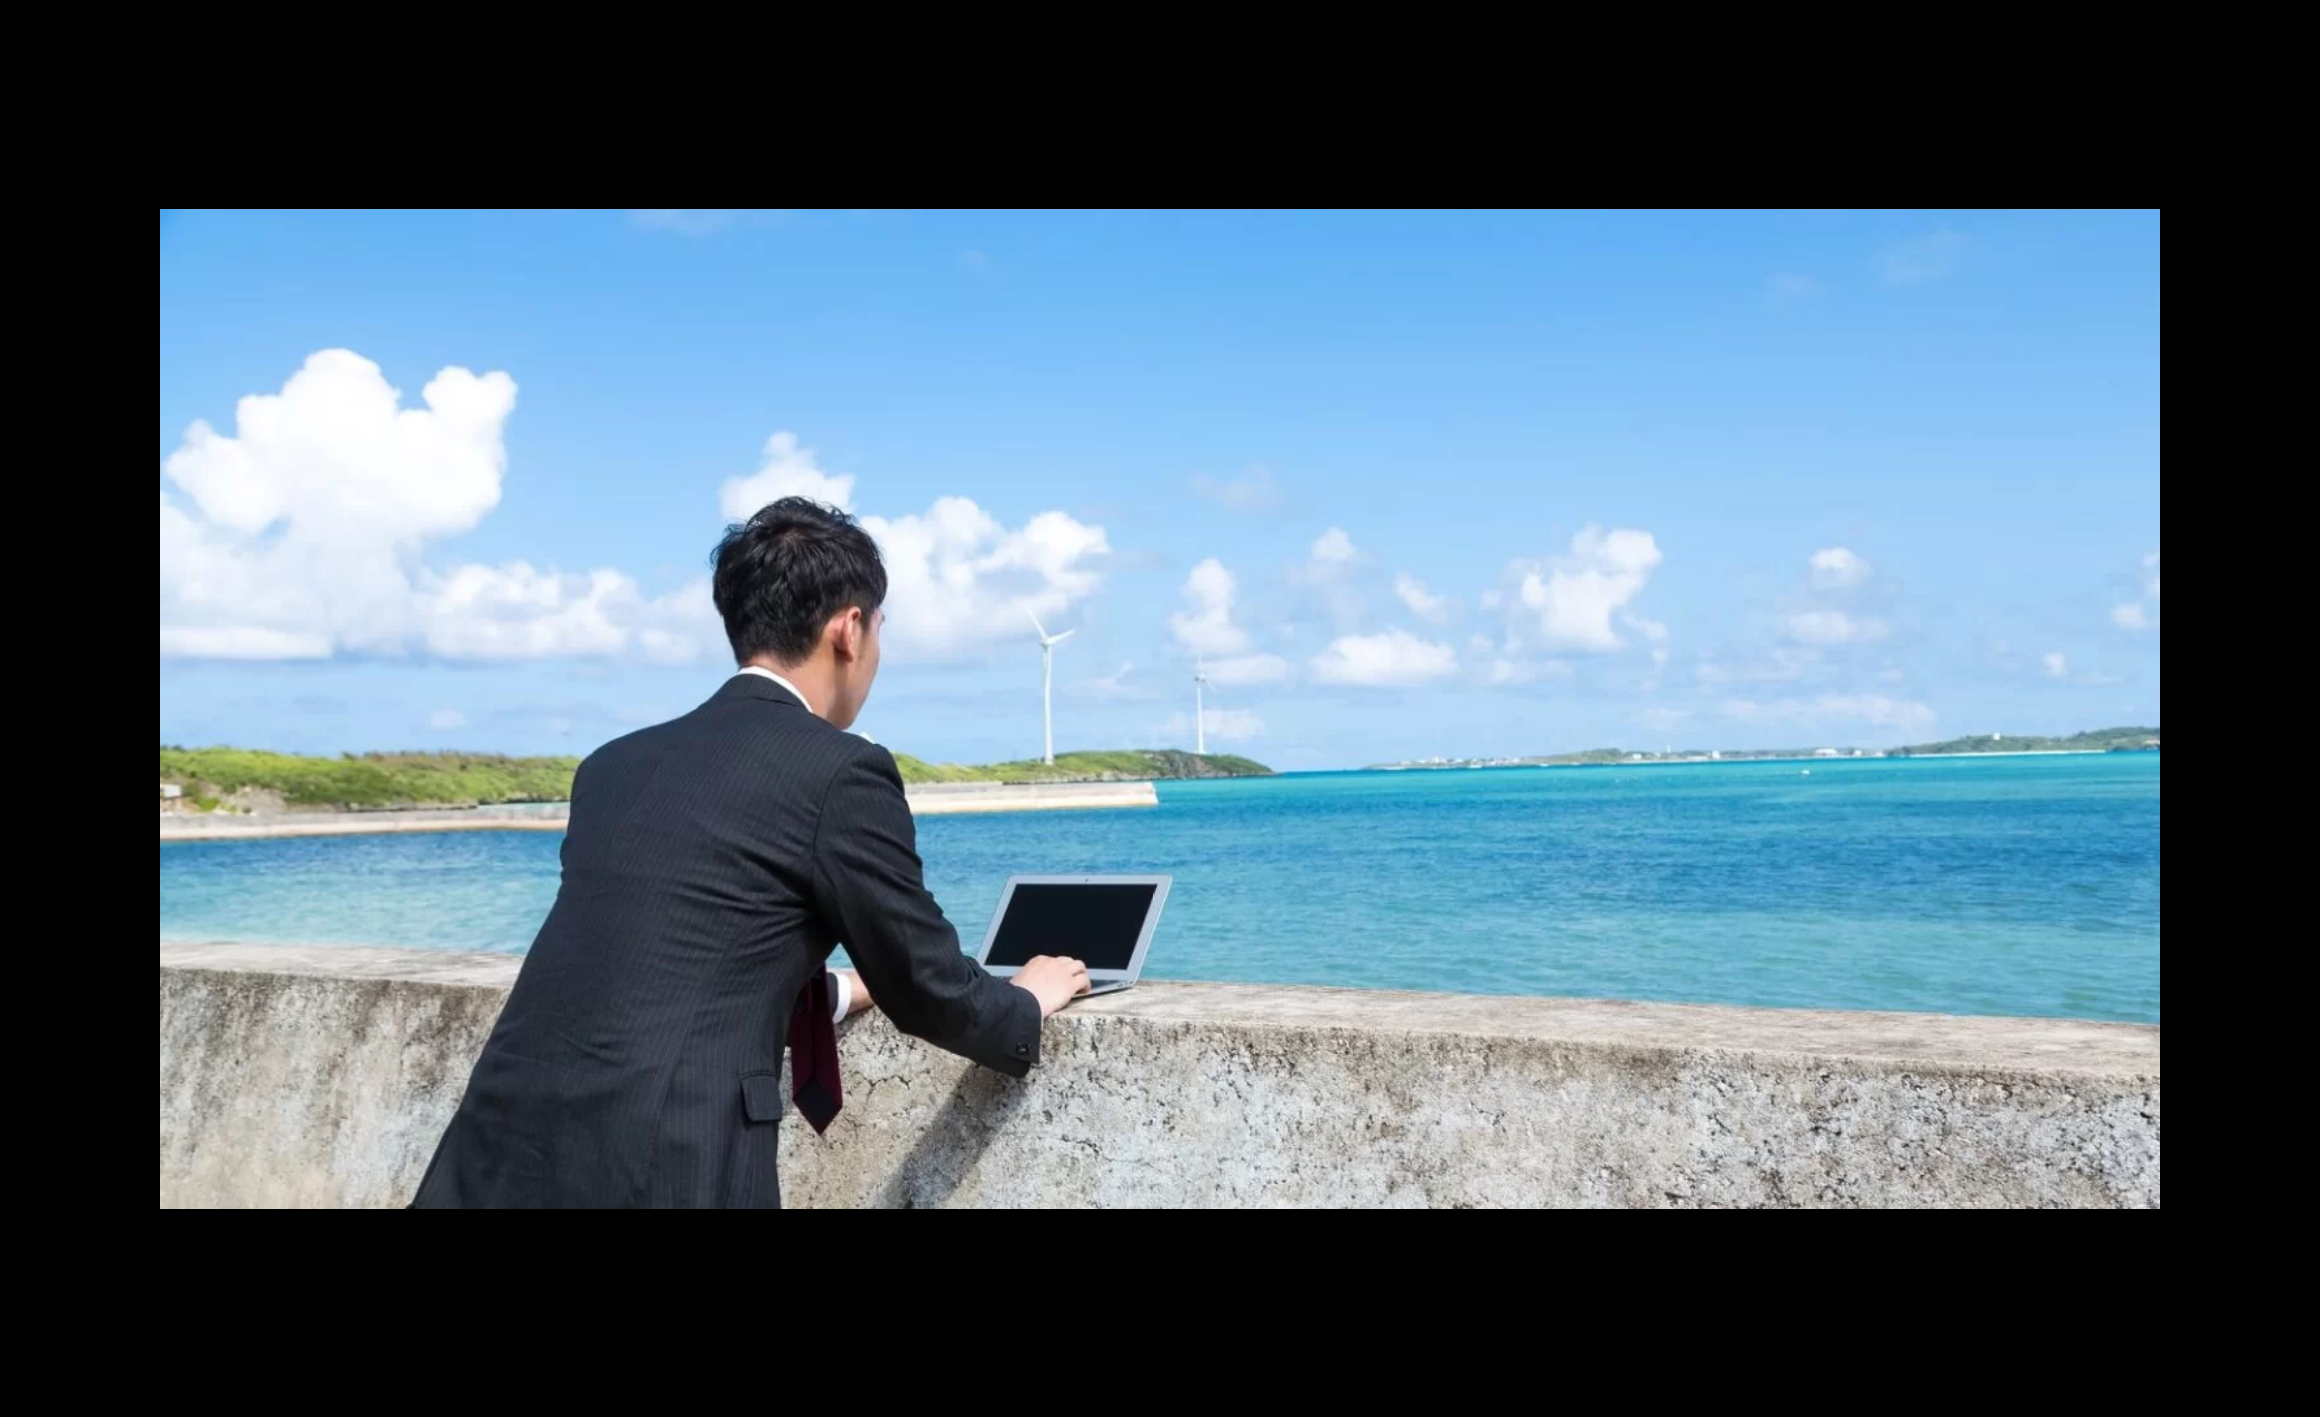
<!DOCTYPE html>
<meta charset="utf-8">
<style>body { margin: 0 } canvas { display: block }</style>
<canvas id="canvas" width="2320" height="1417"></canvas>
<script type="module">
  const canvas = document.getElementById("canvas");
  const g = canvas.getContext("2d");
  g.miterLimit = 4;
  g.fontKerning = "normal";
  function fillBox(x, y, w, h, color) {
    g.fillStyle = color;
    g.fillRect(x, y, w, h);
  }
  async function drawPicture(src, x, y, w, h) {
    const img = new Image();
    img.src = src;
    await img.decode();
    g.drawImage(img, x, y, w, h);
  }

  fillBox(0, 0, 2320, 1417, "#000000");
  await drawPicture("pic1.png", 160, 209, 2000, 1000);
</script>
